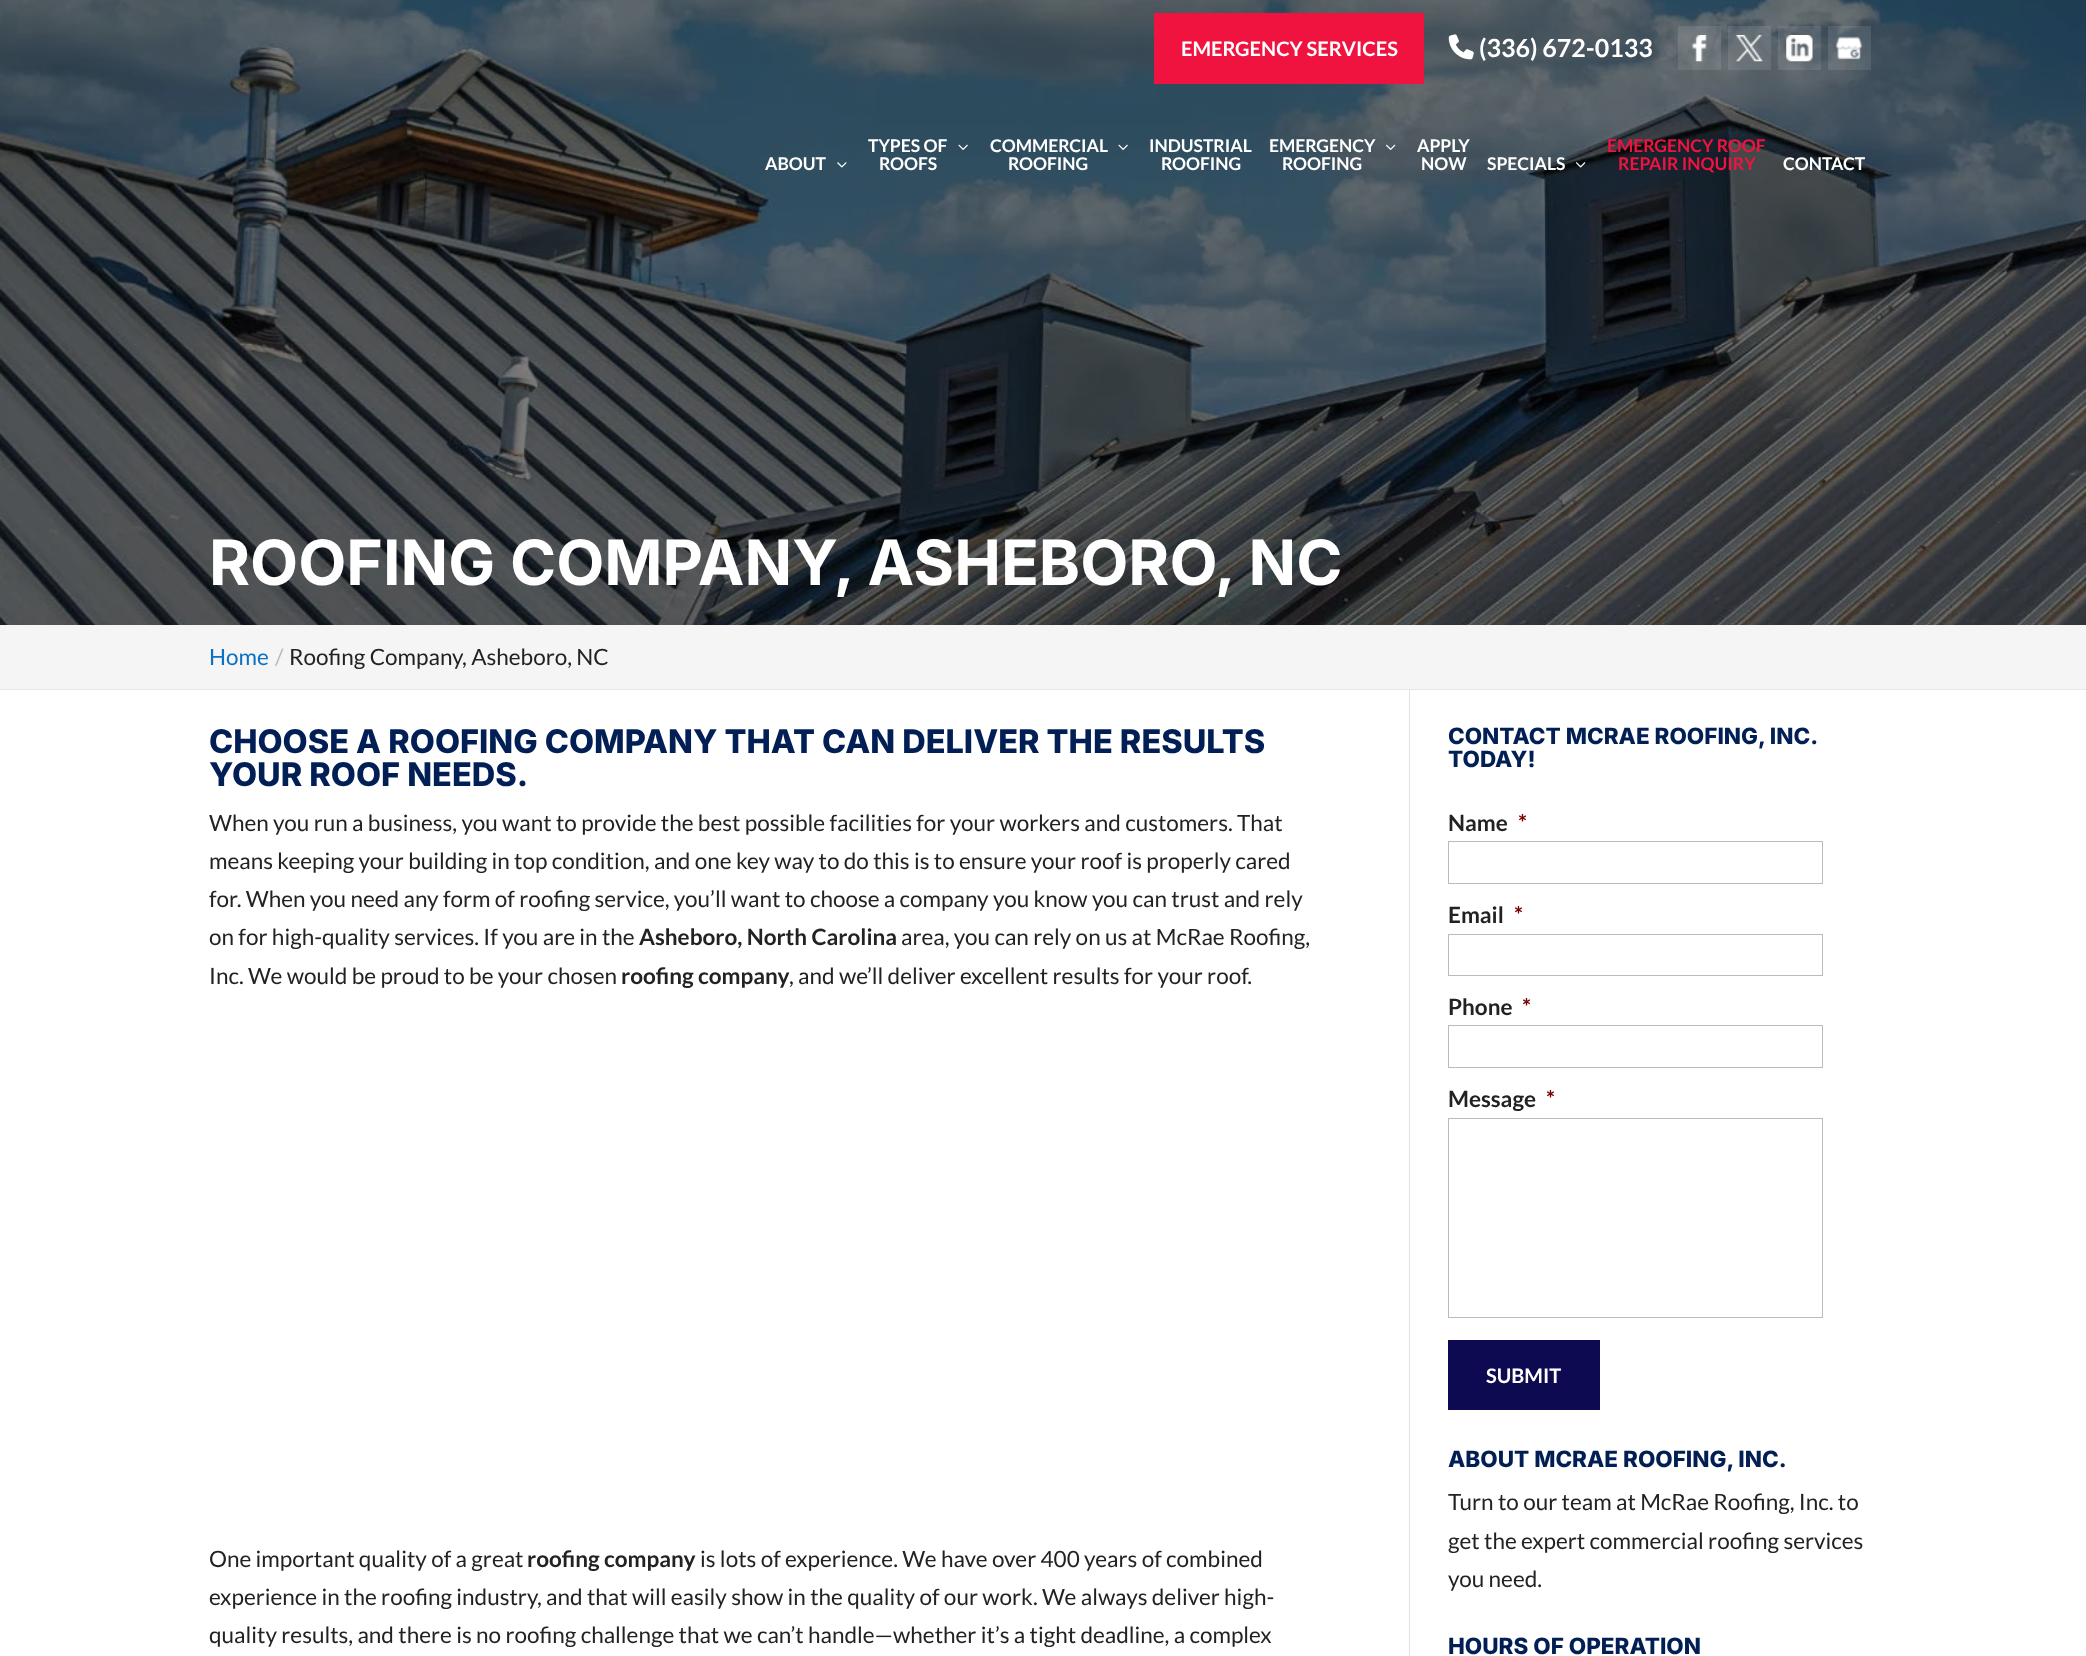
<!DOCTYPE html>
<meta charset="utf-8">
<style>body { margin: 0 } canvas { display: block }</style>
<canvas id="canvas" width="2086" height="1656"></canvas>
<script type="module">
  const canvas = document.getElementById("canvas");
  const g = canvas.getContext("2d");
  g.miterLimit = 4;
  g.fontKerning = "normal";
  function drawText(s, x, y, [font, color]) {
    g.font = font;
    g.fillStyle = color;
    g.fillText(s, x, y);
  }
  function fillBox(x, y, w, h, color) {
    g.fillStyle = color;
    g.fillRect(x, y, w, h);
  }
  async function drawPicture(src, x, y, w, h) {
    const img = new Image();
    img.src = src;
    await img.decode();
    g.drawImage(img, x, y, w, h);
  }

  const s1 = ["bold 20px Lato", "#FFFFFF"];
  const s2 = ["bold 25px Lato", "#FFFFFF"];
  const s3 = ["bold 17.5px Lato", "#FFFFFF"];
  const s4 = ["bold 17.5px Lato", "#F01340"];
  const s5 = ["bold 62.5px Inter", "#FFFFFF"];
  const s6 = ["22.5px Lato", "#0C71C3"];
  const s7 = ["22.5px Lato", "#BBBBBB"];
  const s8 = ["22.5px Lato", "#222222"];
  const s9 = ["800 32.5px Inter", "#011F55"];
  const s10 = ["bold 22.5px Lato", "#222222"];
  const s11 = ["800 22.5px Inter", "#011F55"];
  const s12 = ["bold 22.5px Lato", "#790000"];

  fillBox(0, 0, 2086, 1656, "#FFFFFF");
  await drawPicture("pic11.png", 0, 0, 2086, 625);
  fillBox(1154, 13, 270, 71, "#F01340");
  drawText("EMERGENCY SERVICES", 1181, 56, s1);
  await drawPicture("pic1.png", 1448, 34, 26, 26);
  drawText("(336) 672-0133", 1479, 57, s2);
  fillBox(1678, 26, 43, 44, "rgba(255, 255, 255, 0.1)");
  await drawPicture("pic2.png", 1692, 35, 15, 27);
  fillBox(1728, 26, 43, 44, "rgba(255, 255, 255, 0.1)");
  await drawPicture("pic3.png", 1736, 35, 27, 27);
  fillBox(1778, 26, 43, 44, "rgba(255, 255, 255, 0.1)");
  await drawPicture("pic4.png", 1786, 35, 27, 27);
  fillBox(1828, 26, 43, 44, "rgba(255, 255, 255, 0.1)");
  await drawPicture("pic5.png", 1836, 36, 27, 24);
  drawText("ABOUT", 765, 170, s3);
  await drawPicture("pic6.png", 837, 162, 10, 6);
  drawText("TYPES OF", 868, 152, s3);
  await drawPicture("pic7.png", 958, 144, 10, 6);
  drawText("ROOFS", 879, 170, s3);
  drawText("COMMERCIAL", 990, 152, s3);
  await drawPicture("pic8.png", 1118, 144, 10, 6);
  drawText("ROOFING", 1008, 170, s3);
  drawText("INDUSTRIAL", 1149, 152, s3);
  drawText("ROOFING", 1161, 170, s3);
  drawText("EMERGENCY", 1269, 152, s3);
  await drawPicture("pic9.png", 1386, 144, 10, 6);
  drawText("ROOFING", 1282, 170, s3);
  drawText("APPLY", 1417, 152, s3);
  drawText("NOW", 1421, 170, s3);
  drawText("SPECIALS", 1487, 170, s3);
  await drawPicture("pic10.png", 1576, 162, 10, 6);
  drawText("EMERGENCY ROOF", 1607, 152, s4);
  drawText("REPAIR INQUIRY", 1618, 170, s4);
  drawText("CONTACT", 1783, 170, s3);
  drawText("ROOFING COMPANY, ASHEBORO, NC", 209, 585, s5);
  fillBox(0, 689, 2086, 1, "#E6E6E6");
  fillBox(0, 625, 2086, 64, "#F5F5F5");
  drawText("Home", 209, 665, s6);
  drawText("/", 275, 665, s7);
  drawText("Roofing Company, Asheboro, NC", 289, 665, s8);
  fillBox(1409, 689, 1, 967, "#E2E2E2");
  drawText("CHOOSE A ROOFING COMPANY THAT CAN DELIVER THE RESULTS", 209, 753, s9);
  drawText("YOUR ROOF NEEDS.", 209, 786, s9);
  drawText("When you run a business, you want to provide the best possible facilities for your workers and customers. That", 209, 831, s8);
  drawText("means keeping your building in top condition, and one key way to do this is to ensure your roof is properly cared", 209, 869, s8);
  drawText("for. When you need any form of roofing service, you’ll want to choose a company you know you can trust and rely", 209, 907, s8);
  drawText("on for high-quality services. If you are in the", 209, 945, s8);
  drawText("Asheboro, North Carolina", 639, 945, s10);
  drawText("area, you can rely on us at McRae Roofing,", 901, 945, s8);
  drawText("Inc. We would be proud to be your chosen", 209, 984, s8);
  drawText("roofing company", 621, 984, s10);
  drawText(", and we’ll deliver excellent results for your roof.", 789, 984, s8);
  drawText("One important quality of a great", 209, 1567, s8);
  drawText("roofing company", 527, 1567, s10);
  drawText("is lots of experience. We have over 400 years of combined", 700, 1567, s8);
  drawText("experience in the roofing industry, and that will easily show in the quality of our work. We always deliver high-", 209, 1605, s8);
  drawText("quality results, and there is no roofing challenge that we can’t handle—whether it’s a tight deadline, a complex", 209, 1643, s8);
  drawText("CONTACT MCRAE ROOFING, INC.", 1448, 744, s11);
  drawText("TODAY!", 1448, 767, s11);
  drawText("Name", 1448, 831, s10);
  drawText("*", 1518, 831, s12);
  g.strokeStyle = "#BBBBBB";
  g.strokeRect(1448.5, 841.5, 374, 42);
  drawText("Email", 1448, 923, s10);
  drawText("*", 1514, 923, s12);
  g.strokeRect(1448.5, 934.5, 374, 41);
  drawText("Phone", 1448, 1015, s10);
  drawText("*", 1522, 1015, s12);
  g.strokeRect(1448.5, 1025.5, 374, 42);
  drawText("Message", 1448, 1107, s10);
  drawText("*", 1546, 1107, s12);
  g.strokeRect(1448.5, 1118.5, 374, 199);
  fillBox(1448, 1340, 152, 70, "#0D0A51");
  drawText("SUBMIT", 1486, 1383, s1);
  drawText("ABOUT MCRAE ROOFING, INC.", 1448, 1467, s11);
  drawText("Turn to our team at McRae Roofing, Inc. to", 1448, 1510, s8);
  drawText("get the expert commercial roofing services", 1448, 1549, s8);
  drawText("you need.", 1448, 1587, s8);
  drawText("HOURS OF OPERATION", 1448, 1654, s11);
</script>
